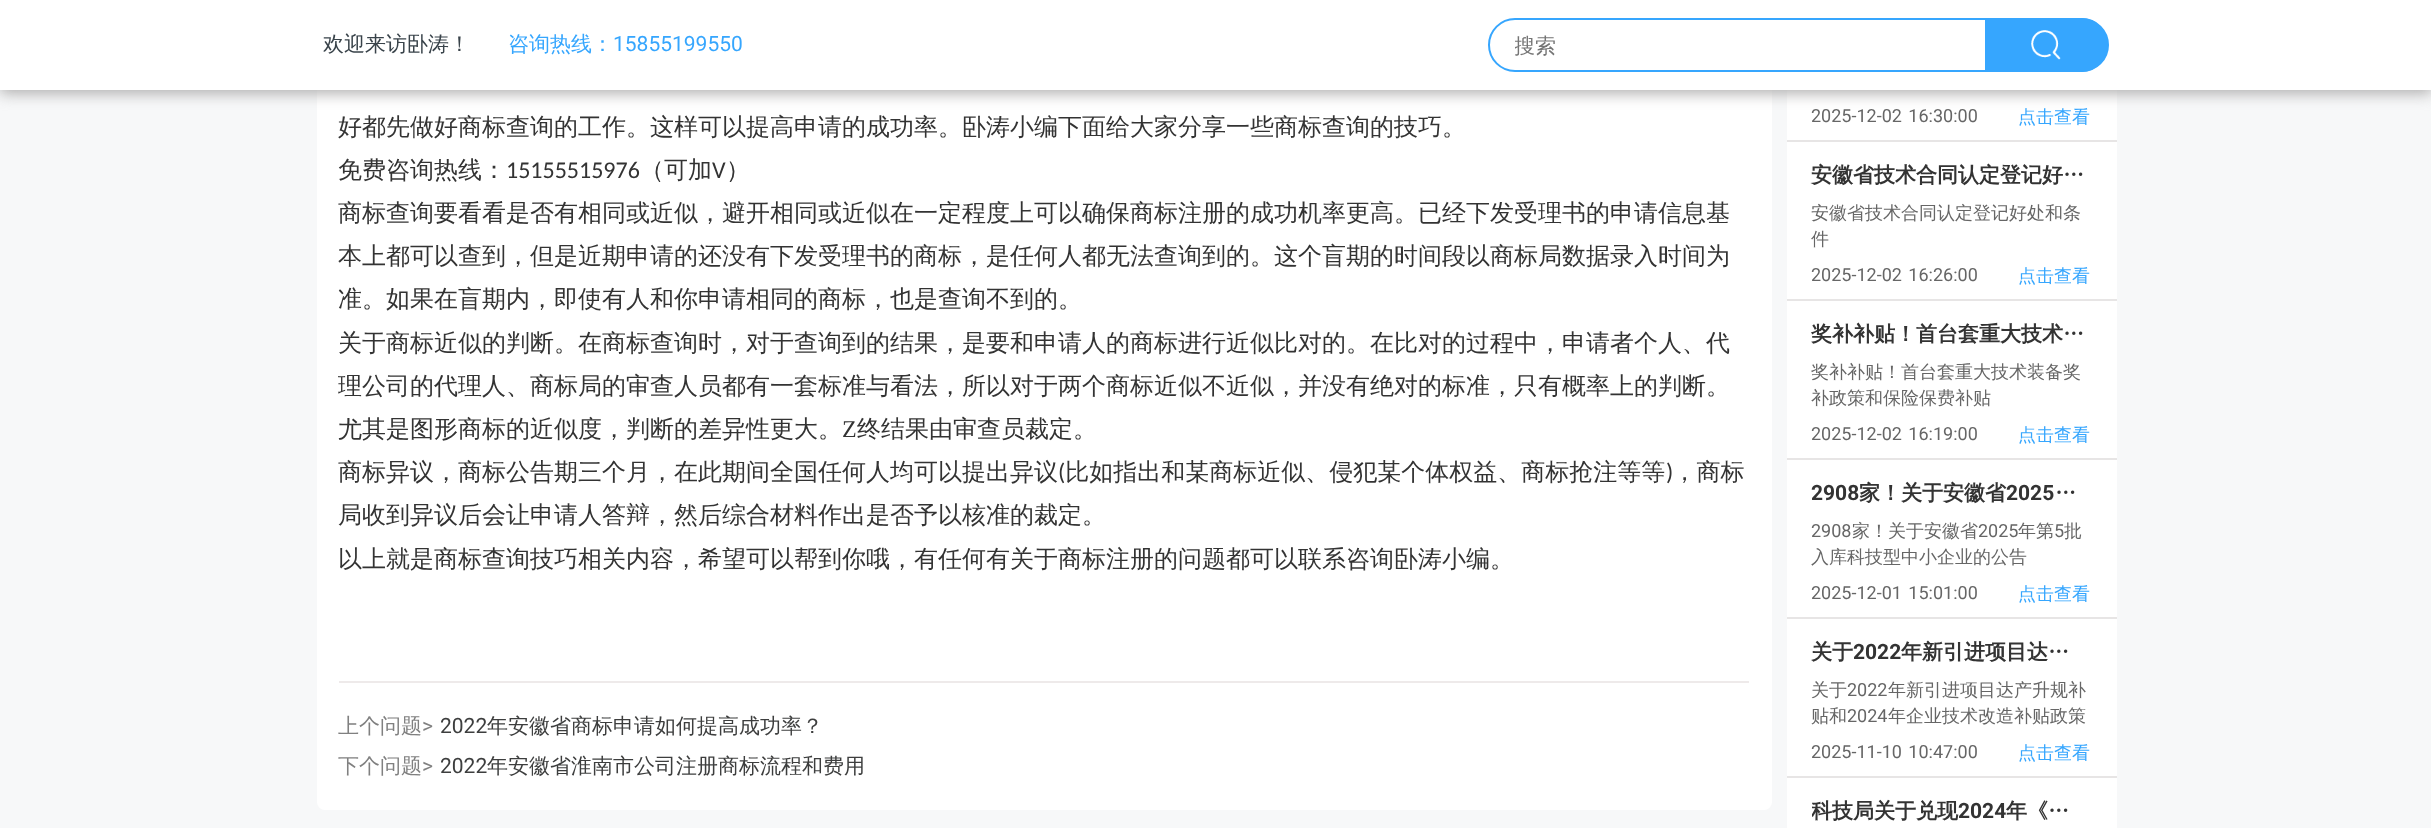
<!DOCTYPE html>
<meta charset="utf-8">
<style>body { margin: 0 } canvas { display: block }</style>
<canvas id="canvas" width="2431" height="828"></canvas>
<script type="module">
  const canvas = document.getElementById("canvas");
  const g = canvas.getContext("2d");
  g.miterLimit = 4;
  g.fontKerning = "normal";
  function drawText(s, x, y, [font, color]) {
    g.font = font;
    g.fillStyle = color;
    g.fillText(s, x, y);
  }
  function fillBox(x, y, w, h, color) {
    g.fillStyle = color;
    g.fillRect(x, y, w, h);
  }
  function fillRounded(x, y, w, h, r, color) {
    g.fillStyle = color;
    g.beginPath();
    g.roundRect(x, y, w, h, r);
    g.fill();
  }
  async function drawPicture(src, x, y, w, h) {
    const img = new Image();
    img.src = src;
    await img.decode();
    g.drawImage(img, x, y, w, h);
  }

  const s1 = ["500 21px WenQuanYi Zen Hei", "#39434A"];
  const s2 = ["500 21px WenQuanYi Zen Hei", "#36A6FE"];
  const s3 = ["21px Roboto", "#36A6FE"];
  const s4 = ["500 21px WenQuanYi Zen Hei", "#757575"];
  const s5 = ["500 24px WenQuanYi Zen Hei", "#333333"];
  const s6 = ["24px Carlito", "#333333"];
  const s7 = ["24px Liberation Serif", "#333333"];
  const s8 = ["500 21px WenQuanYi Zen Hei", "#808080"];
  const s9 = ["21px Roboto", "#808080"];
  const s10 = ["21px Roboto", "#3D3E3E"];
  const s11 = ["500 21px WenQuanYi Zen Hei", "#3D3E3E"];
  const s12 = ["18px Roboto", "#666666"];
  const s13 = ["500 18px WenQuanYi Zen Hei", "#36A6FE"];
  const s14 = ["bold 21px WenQuanYi Zen Hei", "#333333"];
  const s15 = ["500 18px WenQuanYi Zen Hei", "#666666"];
  const s16 = ["bold 21px Roboto", "#333333"];

  fillBox(0, 0, 2431, 828, "#F7F8F9");
  fillRounded(317, -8, 1455, 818, 8, "#FFFFFF");
  fillBox(1787, 90, 330, 738, "#FFFFFF");
  g.fillStyle = "#AAA9A9";
  g.filter = "blur(7.5px)";
  g.beginPath();
  g.rect(0, 3, 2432, 90);
  g.fill();
  g.filter = "none";
  fillBox(0, 0, 2431, 90, "#FFFFFF");
  drawText("欢迎来访卧涛！", 323, 51, s1);
  drawText("咨询热线：", 508, 51, s2);
  drawText("15855199550", 613, 51, s3);
  g.beginPath();
  g.roundRect(1489, 19, 619, 52, 26);
  g.strokeStyle = "#36A6FE";
  g.lineWidth = 2;
  g.stroke();
  g.save();
  g.beginPath();
  g.rect(1515, 33, 444, 26);
  g.clip();
  drawText("搜索", 1514, 53, s4);
  g.restore();
  g.beginPath();
  g.roundRect(1985, 18, 123, 54, [0, 27, 27, 0]);
  g.fill();
  await drawPicture("pic1.png", 2031, 30, 30, 30);
  drawText("好都先做好商标查询的工作。这样可以提高申请的成功率。卧涛小编下面给大家分享一些商标查询的技巧。", 338, 135, s5);
  drawText("免费咨询热线：", 338, 178, s5);
  drawText("15155515976", 506, 178, s6);
  drawText("（可加", 640, 178, s5);
  drawText("V", 712, 178, s6);
  drawText("）", 726, 178, s5);
  drawText("商标查询要看看是否有相同或近似，避开相同或近似在一定程度上可以确保商标注册的成功机率更高。已经下发受理书的申请信息基", 338, 221, s5);
  drawText("本上都可以查到，但是近期申请的还没有下发受理书的商标，是任何人都无法查询到的。这个盲期的时间段以商标局数据录入时间为", 338, 264, s5);
  drawText("准。如果在盲期内，即使有人和你申请相同的商标，也是查询不到的。", 338, 307, s5);
  drawText("关于商标近似的判断。在商标查询时，对于查询到的结果，是要和申请人的商标进行近似比对的。在比对的过程中，申请者个人、代", 338, 351, s5);
  drawText("理公司的代理人、商标局的审查人员都有一套标准与看法，所以对于两个商标近似不近似，并没有绝对的标准，只有概率上的判断。", 338, 394, s5);
  drawText("尤其是图形商标的近似度，判断的差异性更大。", 338, 437, s5);
  drawText("Z", 842, 437, s7);
  drawText("终结果由审查员裁定。", 857, 437, s5);
  drawText("商标异议，商标公告期三个月，在此期间全国任何人均可以提出异议 比如指出和某商标近似、侵犯某个体权益、商标抢注等等 ，商标", 338, 480, s5);
  drawText("(", 1058, 480, s6);
  drawText(")", 1666, 480, s6);
  drawText("局收到异议后会让申请人答辩，然后综合材料作出是否予以核准的裁定。", 338, 523, s5);
  drawText("以上就是商标查询技巧相关内容，希望可以帮到你哦，有任何有关于商标注册的问题都可以联系咨询卧涛小编。", 338, 567, s5);
  fillBox(339, 681, 1410, 2, "#EEEAEA");
  drawText("上个问题", 338, 733, s8);
  drawText(">", 422, 733, s9);
  drawText("2022", 440, 733, s10);
  drawText("年安徽省商标申请如何提高成功率？", 487, 733, s11);
  drawText("下个问题", 338, 773, s8);
  drawText(">", 422, 773, s9);
  drawText("2022", 440, 773, s10);
  drawText("年安徽省淮南市公司注册商标流程和费用", 487, 773, s11);
  g.wordSpacing = "2px";
  drawText("2025-12-02 16:30:00", 1811, 122, s12);
  g.wordSpacing = "0px";
  drawText("点击查看", 2018, 123, s13);
  fillBox(1787, 140, 330, 2, "#E7E5E5");
  drawText("安徽省技术合同认定登记好…", 1811, 182, s14);
  drawText("安徽省技术合同认定登记好处和条", 1811, 219, s15);
  drawText("件", 1811, 245, s15);
  g.wordSpacing = "2px";
  drawText("2025-12-02 16:26:00", 1811, 281, s12);
  g.wordSpacing = "0px";
  drawText("点击查看", 2018, 282, s13);
  fillBox(1787, 299, 330, 2, "#E7E5E5");
  drawText("奖补补贴！首台套重大技术…", 1811, 341, s14);
  drawText("奖补补贴！首台套重大技术装备奖", 1811, 378, s15);
  drawText("补政策和保险保费补贴", 1811, 404, s15);
  g.wordSpacing = "2px";
  drawText("2025-12-02 16:19:00", 1811, 440, s12);
  g.wordSpacing = "0px";
  drawText("点击查看", 2018, 441, s13);
  fillBox(1787, 458, 330, 2, "#E7E5E5");
  drawText("2908", 1811, 500, s16);
  drawText("家！关于安徽省", 1859, 500, s14);
  drawText("2025", 2006, 500, s16);
  drawText("…", 2055, 500, s14);
  drawText("2908", 1811, 537, s12);
  drawText("家！关于安徽省", 1852, 537, s15);
  drawText("2025", 1978, 537, s12);
  drawText("年第", 2018, 537, s15);
  drawText("5", 2054, 537, s12);
  drawText("批", 2064, 537, s15);
  drawText("入库科技型中小企业的公告", 1811, 563, s15);
  g.wordSpacing = "2px";
  drawText("2025-12-01 15:01:00", 1811, 599, s12);
  g.wordSpacing = "0px";
  drawText("点击查看", 2018, 600, s13);
  fillBox(1787, 617, 330, 2, "#E7E5E5");
  drawText("关于", 1811, 659, s14);
  drawText("2022", 1853, 659, s16);
  drawText("年新引进项目达…", 1901, 659, s14);
  drawText("关于", 1811, 696, s15);
  drawText("2022", 1847, 696, s12);
  drawText("年新引进项目达产升规补", 1888, 696, s15);
  drawText("贴和", 1811, 722, s15);
  drawText("2024", 1847, 722, s12);
  drawText("年企业技术改造补贴政策", 1888, 722, s15);
  g.wordSpacing = "2px";
  drawText("2025-11-10 10:47:00", 1811, 758, s12);
  g.wordSpacing = "0px";
  drawText("点击查看", 2018, 759, s13);
  fillBox(1787, 776, 330, 2, "#E7E5E5");
  g.save();
  g.beginPath();
  g.rect(1812, 798, 279, 27);
  g.clip();
  drawText("科技局关于兑现", 1811, 818, s14);
  g.restore();
  drawText("2024", 1958, 818, s16);
  drawText("年《…", 2006, 818, s14);
</script>
